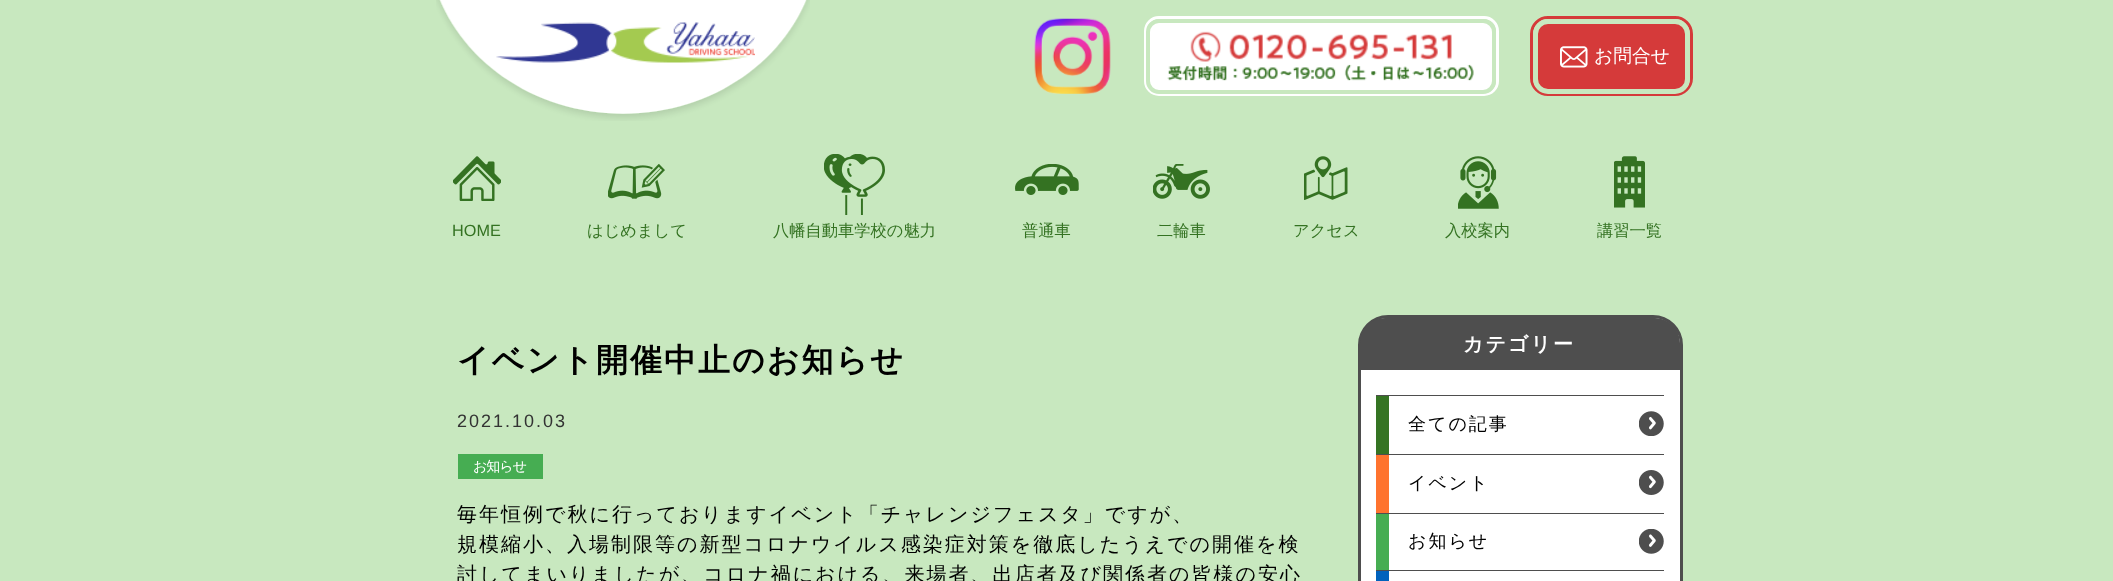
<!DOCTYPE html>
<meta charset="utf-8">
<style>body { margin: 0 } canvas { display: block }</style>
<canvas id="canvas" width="2113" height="581"></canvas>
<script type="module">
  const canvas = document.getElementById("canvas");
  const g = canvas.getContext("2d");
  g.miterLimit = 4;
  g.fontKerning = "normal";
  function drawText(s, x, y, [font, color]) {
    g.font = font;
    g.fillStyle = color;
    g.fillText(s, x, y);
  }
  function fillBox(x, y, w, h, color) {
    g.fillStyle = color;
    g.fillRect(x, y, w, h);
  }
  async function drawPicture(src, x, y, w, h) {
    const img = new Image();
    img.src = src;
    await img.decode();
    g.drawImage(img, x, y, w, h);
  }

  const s1 = ["500 18.75px WenQuanYi Zen Hei", "#FFFFFF"];
  const s2 = ["16.25px Liberation Sans", "#347222"];
  const s3 = ["500 16.25px WenQuanYi Zen Hei", "#347222"];
  const s4 = ["bold 32px WenQuanYi Zen Hei", "#000000"];
  const s5 = ["18px Liberation Sans", "#333333"];
  const s6 = ["500 14px WenQuanYi Zen Hei", "#FFFFFF"];
  const s7 = ["500 20px WenQuanYi Zen Hei", "#000000"];
  const s8 = ["bold 20px WenQuanYi Zen Hei", "#FFFFFF"];
  const s9 = ["500 18px WenQuanYi Zen Hei", "#000000"];

  fillBox(0, 0, 2113, 581, "#C8E8BF");
  await drawPicture("pic1.png", 436, 0, 374, 121);
  await drawPicture("pic2.png", 496, 22, 259, 41);
  await drawPicture("pic3.png", 1034, 18, 77, 76);
  g.beginPath();
  g.roundRect(1145.5, 17.5, 352, 77, 13.5);
  g.strokeStyle = "#FFFFFF";
  g.lineWidth = 3;
  g.stroke();
  g.fillStyle = "#FFFFFF";
  g.beginPath();
  g.roundRect(1148, 21, 346, 71, 11);
  g.fill();
  g.strokeStyle = "#C8E8BF";
  g.lineWidth = 4;
  g.stroke();
  await drawPicture("pic4.png", 1190, 31, 262, 31);
  await drawPicture("pic5.png", 1167, 64, 307, 17);
  g.beginPath();
  g.roundRect(1531.5, 17.5, 160, 77, 16.5);
  g.strokeStyle = "#D53A3A";
  g.lineWidth = 3;
  g.stroke();
  g.fillStyle = "#D53A3A";
  g.beginPath();
  g.roundRect(1535.5, 21.5, 152, 70, 12.5);
  g.fill();
  g.strokeStyle = "#C8E8BF";
  g.lineWidth = 5;
  g.stroke();
  await drawPicture("pic6.png", 1560, 46, 28, 22);
  drawText("お問合せ", 1594, 62, s1);
  await drawPicture("pic7.png", 453, 156, 48, 45);
  drawText("HOME", 452, 236, s2);
  await drawPicture("pic8.png", 608, 164, 57, 35);
  drawText("はじめまして", 587, 236, s3);
  await drawPicture("pic9.png", 824, 154, 61, 61);
  drawText("八幡自動車学校の魅力", 773, 236, s3);
  await drawPicture("pic10.png", 1015, 164, 64, 31);
  drawText("普通車", 1022, 236, s3);
  await drawPicture("pic11.png", 1153, 164, 57, 35);
  drawText("二輪車", 1157, 236, s3);
  await drawPicture("pic12.png", 1304, 156, 44, 44);
  drawText("アクセス", 1293, 236, s3);
  await drawPicture("pic13.png", 1458, 156, 41, 53);
  drawText("入校案内", 1445, 236, s3);
  await drawPicture("pic14.png", 1614, 156, 31, 52);
  drawText("講習一覧", 1597, 236, s3);
  g.letterSpacing = "2px";
  drawText("イベント開催中止のお知らせ", 457, 371, s4);
  drawText("2021.10.03", 457, 427, s5);
  fillBox(458, 454, 85, 25, "#46AD52");
  g.letterSpacing = "-1px";
  drawText("お知らせ", 473, 471, s6);
  g.letterSpacing = "2px";
  drawText("毎年恒例で秋に行っておりますイベント「チャレンジフェスタ」ですが、", 457, 521, s7);
  drawText("規模縮小、入場制限等の新型コロナウイルス感染症対策を徹底したうえでの開催を検", 457, 551, s7);
  drawText("討してまいりましたが、コロナ禍における、来場者、出店者及び関係者の皆様の安心", 457, 581, s7);
  g.fillStyle = "#FFFFFF";
  g.beginPath();
  g.roundRect(1359.5, 316.5, 322, 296, 28.5);
  g.fill();
  g.strokeStyle = "#4E4E4E";
  g.lineWidth = 3;
  g.stroke();
  g.fillStyle = "#4E4E4E";
  g.beginPath();
  g.roundRect(1360, 318, 320, 52, [25, 25, 0, 0]);
  g.fill();
  drawText("カテゴリー", 1463, 351, s8);
  fillBox(1376, 395, 288, 1, "#4E4E4E");
  fillBox(1376, 396, 13, 58, "#357423");
  drawText("全ての記事", 1408, 430, s9);
  await drawPicture("pic15.png", 1639, 411, 25, 25);
  fillBox(1376, 454, 288, 1, "#4E4E4E");
  fillBox(1376, 455, 13, 58, "#FF732E");
  drawText("イベント", 1408, 489, s9);
  await drawPicture("pic16.png", 1639, 470, 25, 25);
  fillBox(1376, 513, 288, 1, "#4E4E4E");
  fillBox(1376, 514, 13, 56, "#46AD52");
  drawText("お知らせ", 1408, 547, s9);
  await drawPicture("pic17.png", 1639, 529, 25, 25);
  fillBox(1376, 570, 288, 1, "#4E4E4E");
  fillBox(1376, 571, 13, 10, "#0162BC");
</script>
